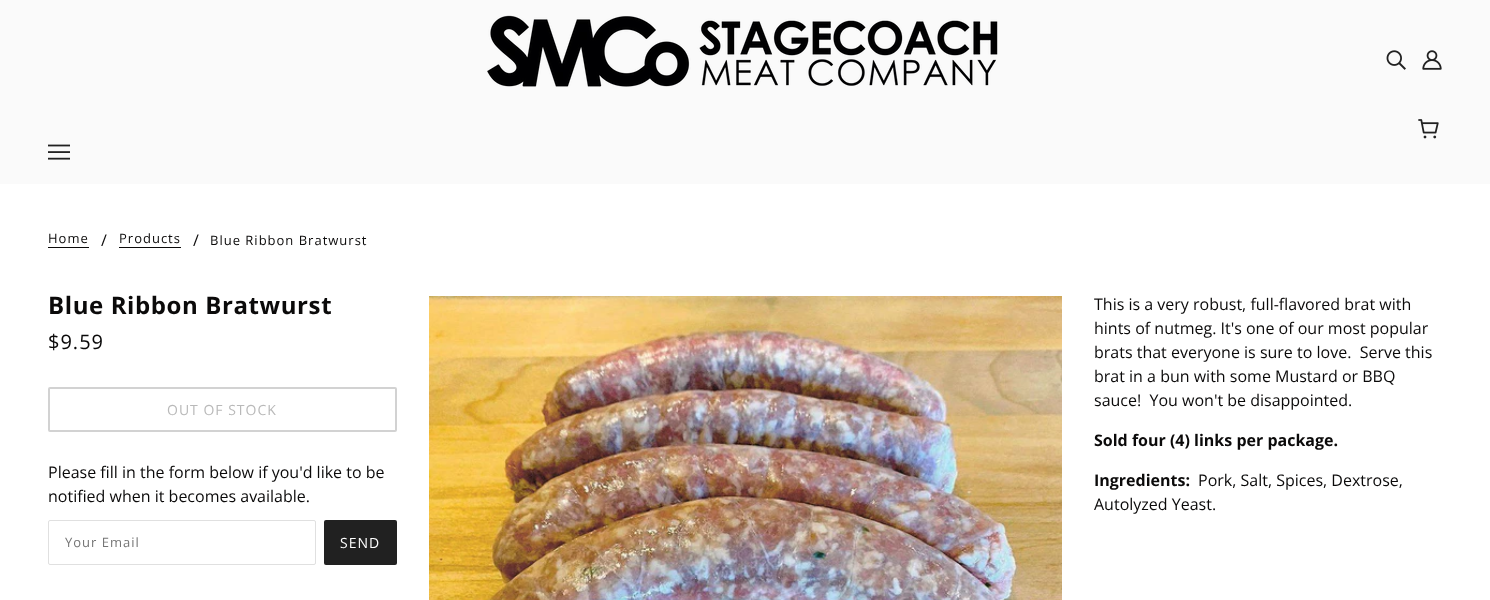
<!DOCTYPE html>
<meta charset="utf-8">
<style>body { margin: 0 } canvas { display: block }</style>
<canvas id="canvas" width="1490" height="600"></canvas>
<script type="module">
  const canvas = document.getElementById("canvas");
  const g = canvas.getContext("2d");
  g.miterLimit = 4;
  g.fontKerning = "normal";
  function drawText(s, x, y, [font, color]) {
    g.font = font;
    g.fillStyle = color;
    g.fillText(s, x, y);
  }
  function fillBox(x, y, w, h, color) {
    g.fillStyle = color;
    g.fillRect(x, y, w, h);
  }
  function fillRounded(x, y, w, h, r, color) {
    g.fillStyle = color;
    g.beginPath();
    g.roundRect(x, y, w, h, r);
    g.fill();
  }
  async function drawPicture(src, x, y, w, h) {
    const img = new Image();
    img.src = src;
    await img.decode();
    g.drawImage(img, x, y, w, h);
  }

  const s1 = ["13px Open Sans", "#0B0A0A"];
  const s2 = ["16px Open Sans", "#0B0A0A"];
  const s3 = ["bold 24px Open Sans", "#0B0A0A"];
  const s4 = ["bold 16px Open Sans", "#0B0A0A"];
  const s5 = ["20px Open Sans", "#0B0A0A"];
  const s6 = ["14px Open Sans", "#B9B9B9"];
  const s7 = ["13px Open Sans", "#757575"];
  const s8 = ["14px Open Sans", "#FFFFFF"];

  fillBox(0, 0, 1490, 600, "#FFFFFF");
  fillBox(0, 0, 1490, 184, "#FAFAFA");
  await drawPicture("pic1.png", 487, 15, 511, 72);
  await drawPicture("pic2.png", 1386, 50, 20, 20);
  await drawPicture("pic3.png", 1422, 50, 20, 20);
  await drawPicture("pic4.png", 1418, 119, 21, 20);
  await drawPicture("pic5.png", 48, 144, 22, 16);
  g.letterSpacing = "1px";
  drawText("Home", 48, 243, s1);
  fillBox(48, 247, 41, 1, "#0B0A0A");
  g.letterSpacing = "0px";
  drawText("/", 101, 246, s2);
  g.letterSpacing = "1px";
  drawText("Products", 119, 243, s1);
  fillBox(119, 247, 62, 1, "#0B0A0A");
  g.letterSpacing = "0px";
  drawText("/", 193, 246, s2);
  g.letterSpacing = "1px";
  drawText("Blue Ribbon Bratwurst", 210, 245, s1);
  g.letterSpacing = "0.6px";
  drawText("Blue Ribbon Bratwurst", 48, 314, s3);
  await drawPicture("pic6.png", 429, 296, 633, 304);
  g.letterSpacing = "0px";
  drawText("This is a very robust, full-flavored brat with", 1094, 310, s2);
  drawText("hints of nutmeg. It's one of our most popular", 1094, 334, s2);
  drawText("brats that everyone is sure to love.  Serve this", 1094, 358, s2);
  drawText("brat in a bun with some Mustard or BBQ", 1094, 382, s2);
  drawText("sauce!  You won't be disappointed.", 1094, 406, s2);
  drawText("Sold four (4) links per package.", 1094, 446, s4);
  drawText("Ingredients:", 1094, 486, s4);
  drawText("Pork, Salt, Spices, Dextrose,", 1198, 486, s2);
  drawText("Autolyzed Yeast.", 1094, 510, s2);
  g.letterSpacing = "1px";
  drawText("$9.59", 48, 349, s5);
  g.beginPath();
  g.roundRect(49, 388, 347, 43, 1);
  g.strokeStyle = "#D2D2D2";
  g.lineWidth = 2;
  g.stroke();
  drawText("OUT OF STOCK", 167, 415, s6);
  g.letterSpacing = "0px";
  drawText("Please fill in the form below if you'd like to be", 48, 478, s2);
  drawText("notified when it becomes available.", 48, 502, s2);
  g.beginPath();
  g.roundRect(48.5, 520.5, 267, 44, 1.5);
  g.strokeStyle = "#E0E0E0";
  g.lineWidth = 1;
  g.stroke();
  g.letterSpacing = "1px";
  drawText("Your Email", 65, 547, s7);
  fillRounded(324, 520, 73, 45, 2, "#212121");
  drawText("SEND", 340, 548, s8);
</script>
